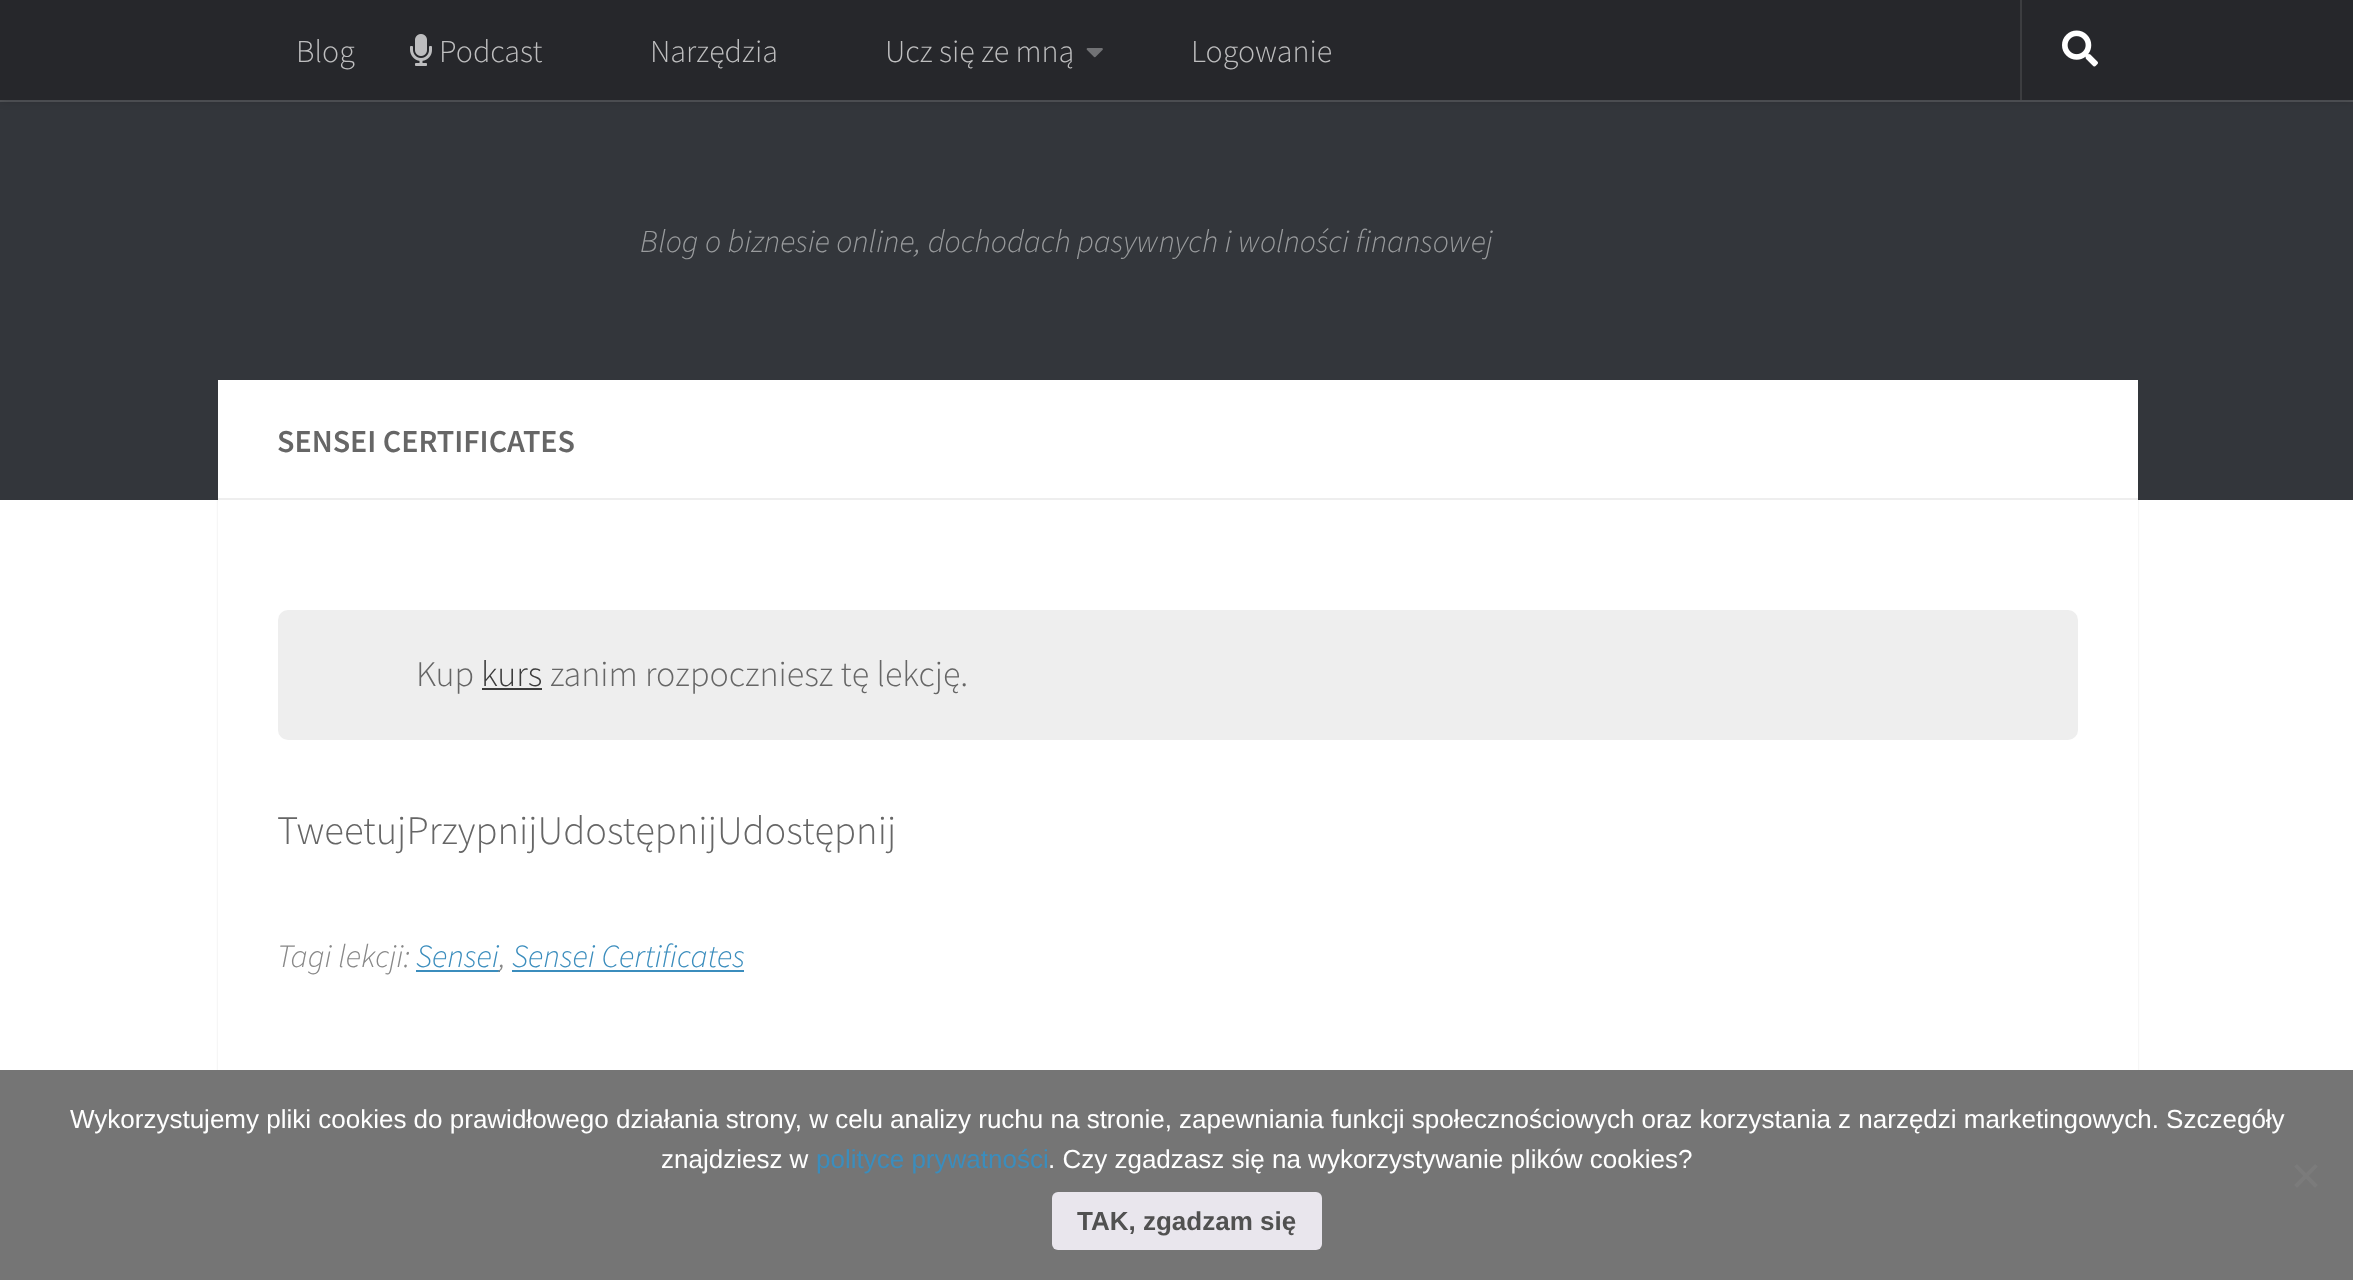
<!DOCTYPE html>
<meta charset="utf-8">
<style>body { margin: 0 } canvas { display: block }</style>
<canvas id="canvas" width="2353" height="1280"></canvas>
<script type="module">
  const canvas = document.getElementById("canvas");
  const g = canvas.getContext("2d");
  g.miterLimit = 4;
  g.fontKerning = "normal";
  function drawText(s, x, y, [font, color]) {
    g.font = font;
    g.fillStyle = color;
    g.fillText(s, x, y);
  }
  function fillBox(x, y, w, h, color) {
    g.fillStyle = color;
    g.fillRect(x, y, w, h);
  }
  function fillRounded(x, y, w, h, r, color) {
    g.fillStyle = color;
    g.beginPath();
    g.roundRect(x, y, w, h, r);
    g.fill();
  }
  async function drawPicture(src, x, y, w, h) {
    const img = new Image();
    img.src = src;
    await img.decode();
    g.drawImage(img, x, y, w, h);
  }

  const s1 = ["300 32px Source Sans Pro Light", "#BEBEBF"];
  const s2 = ["italic 300 32px Source Sans Pro Light", "#999B9D"];
  const s3 = ["600 32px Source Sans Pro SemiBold", "#666666"];
  const s4 = ["300 36px Source Sans Pro Light", "#666666"];
  const s5 = ["300 36px Source Sans Pro Light", "#3C3C3C"];
  const s6 = ["300 40.5px Source Sans Pro Light", "#666666"];
  const s7 = ["italic 300 32.5px Source Sans Pro Light", "#888888"];
  const s8 = ["italic 300 32.5px Source Sans Pro Light", "#3B8DBD"];
  const s9 = ["26px Liberation Sans", "#FFFFFF"];
  const s10 = ["26px Liberation Sans", "#3B8DBD"];
  const s11 = ["bold 26px Liberation Sans", "#515151"];

  fillBox(0, 0, 2353, 1280, "#FFFFFF");
  g.fillStyle = "rgba(0, 0, 0, 0.1)";
  g.filter = "blur(1px)";
  g.beginPath();
  g.rect(218, 382, 1920, 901);
  g.fill();
  g.filter = "none";
  fillBox(0, 102, 2353, 398, "#33363B");
  fillBox(0, 100, 2353, 2, "#525458");
  g.fillStyle = "rgba(0, 0, 0, 0.2)";
  g.filter = "blur(5px)";
  g.beginPath();
  g.rect(0, 0, 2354, 100);
  g.fill();
  g.filter = "none";
  fillBox(0, 0, 2353, 100, "#26272B");
  drawText("Blog", 296, 62, s1);
  await drawPicture("pic1.png", 410, 34, 22, 32);
  drawText("Podcast", 439, 62, s1);
  drawText("Narzędzia", 650, 62, s1);
  drawText("Ucz się ze mną", 885, 62, s1);
  await drawPicture("pic2.png", 1086, 48, 17, 10);
  drawText("Logowanie", 1191, 62, s1);
  fillBox(2020, 0, 2, 100, "#3C3D40");
  await drawPicture("pic3.png", 2062, 30, 36, 37);
  drawText("Blog o biznesie online, dochodach pasywnych i wolności finansowej", 640, 252, s2);
  fillBox(218, 380, 1920, 690, "#FFFFFF");
  fillBox(218, 498, 1920, 2, "#EEEEEE");
  drawText("SENSEI CERTIFICATES", 277, 452, s3);
  fillRounded(278, 610, 1800, 130, 10, "#EEEEEE");
  drawText("Kup", 416, 686, s4);
  drawText("kurs", 481, 686, s5);
  fillBox(482, 688, 60, 2, "#3C3C3C");
  drawText("zanim rozpoczniesz tę lekcję.", 550, 686, s4);
  drawText("TweetujPrzypnijUdostępnijUdostępnij", 277, 844, s6);
  drawText("Tagi lekcji:", 277, 967, s7);
  drawText("Sensei", 416, 967, s8);
  fillBox(416, 970, 84, 2, "#3B8DBD");
  drawText(",", 499, 967, s7);
  drawText("Sensei Certificates", 512, 967, s8);
  fillBox(512, 970, 232, 2, "#3B8DBD");
  fillBox(0, 1070, 2353, 210, "#757575");
  drawText("Wykorzystujemy pliki cookies do prawidłowego działania strony, w celu analizy ruchu na stronie, zapewniania funkcji społecznościowych oraz korzystania z narzędzi marketingowych. Szczegóły", 70, 1128, s9);
  drawText("znajdziesz w", 661, 1168, s9);
  drawText("polityce prywatności", 816, 1168, s10);
  drawText(". Czy zgadzasz się na wykorzystywanie plików cookies?", 1048, 1168, s9);
  g.fillStyle = "#7B7B7B";
  g.beginPath();
  g.moveTo(2315, 1164);
  g.lineTo(2318, 1166.5);
  g.lineTo(2297, 1188);
  g.lineTo(2294, 1185);
  g.closePath();
  g.fill();
  g.beginPath();
  g.moveTo(2294, 1166.5);
  g.lineTo(2297, 1164);
  g.lineTo(2318, 1185);
  g.lineTo(2315, 1188);
  g.closePath();
  g.fill();
  fillRounded(1052, 1192, 270, 58, 6, "#E9E6ED");
  drawText("TAK, zgadzam się", 1077, 1230, s11);
</script>
